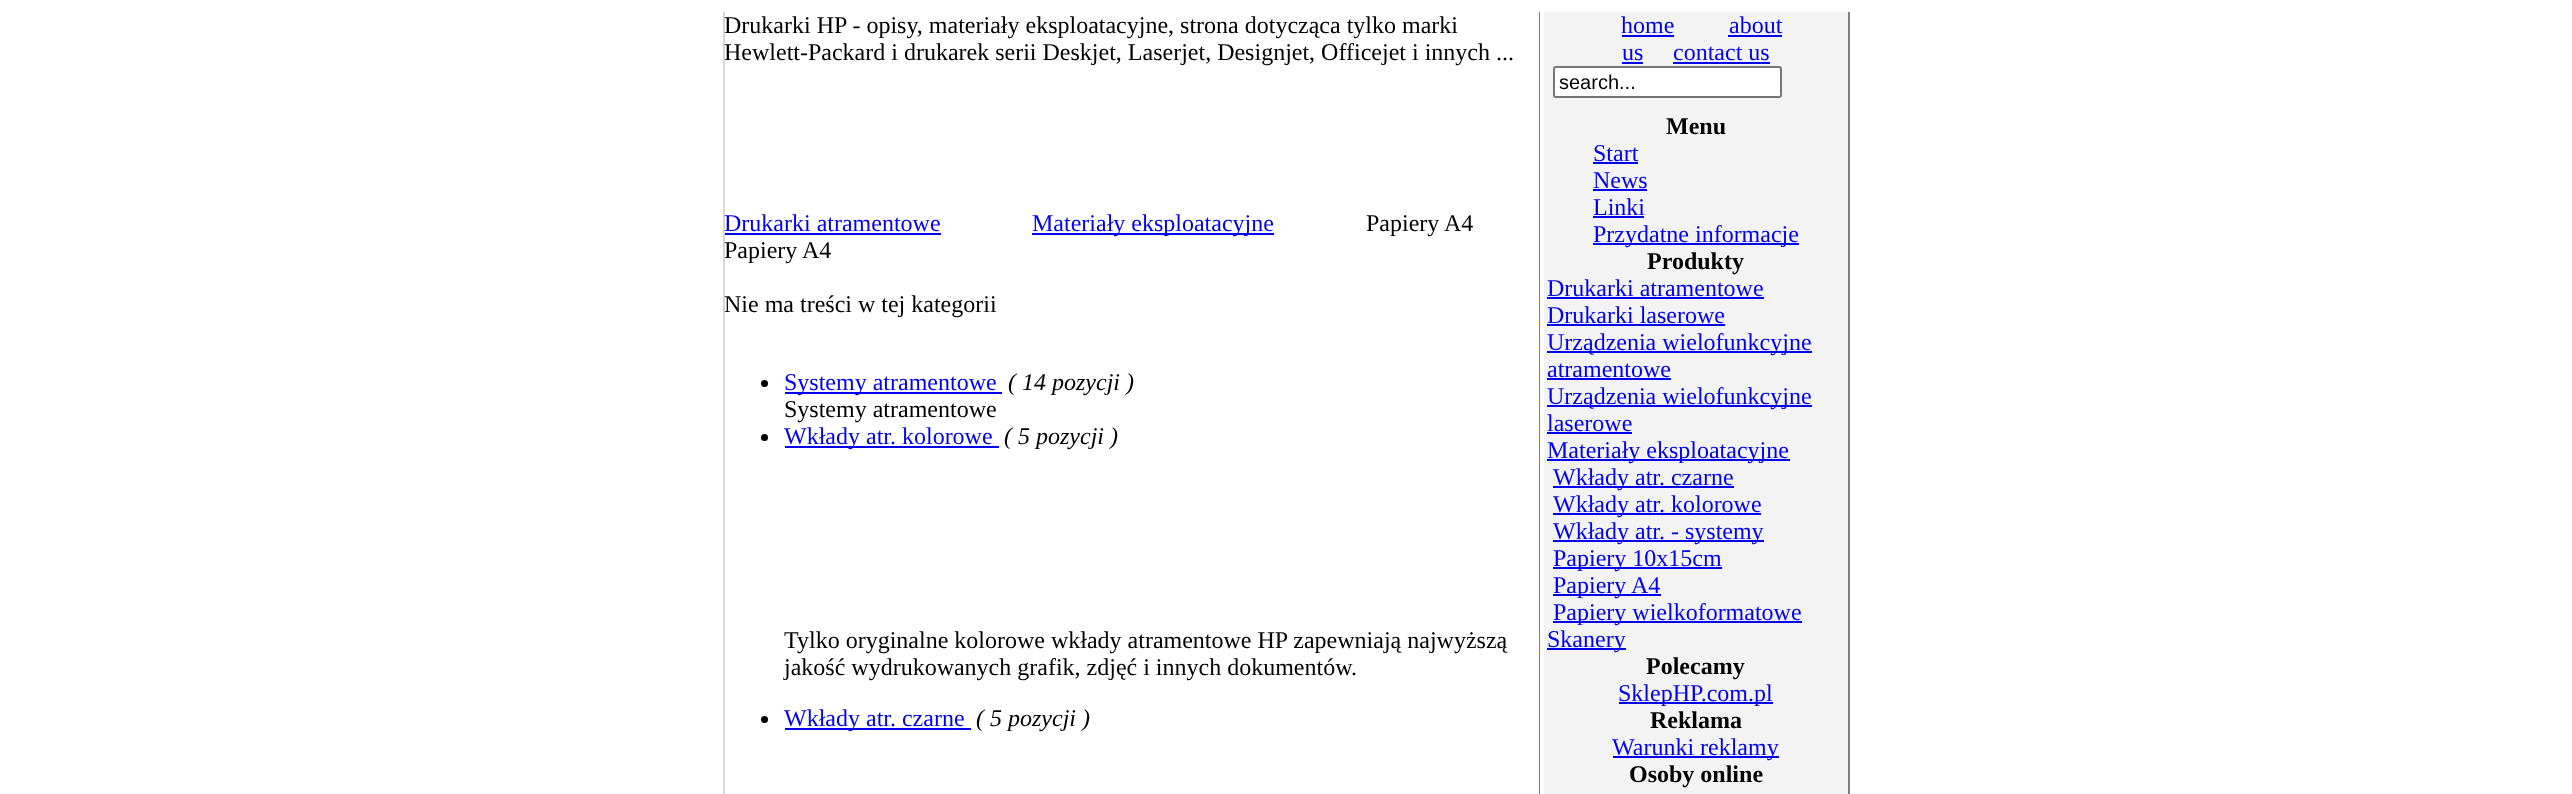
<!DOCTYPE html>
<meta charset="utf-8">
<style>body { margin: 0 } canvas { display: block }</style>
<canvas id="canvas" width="2572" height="794"></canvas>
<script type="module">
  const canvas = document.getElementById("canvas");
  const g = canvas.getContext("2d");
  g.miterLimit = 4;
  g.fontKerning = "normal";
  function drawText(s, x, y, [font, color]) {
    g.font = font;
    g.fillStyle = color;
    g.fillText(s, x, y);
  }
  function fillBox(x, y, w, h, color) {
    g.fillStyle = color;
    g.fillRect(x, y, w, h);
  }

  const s1 = ["24px Liberation Serif", "#000000"];
  const s2 = ["24px Liberation Serif", "#0000EE"];
  const s3 = ["italic 24px Liberation Serif", "#000000"];
  const s4 = ["20px Liberation Sans", "#000000"];
  const s5 = ["bold 24px Liberation Serif", "#000000"];

  fillBox(0, 0, 2572, 794, "#FFFFFF");
  fillBox(1539, 12, 1, 782, "#7E7E7E");
  fillBox(723, 12, 2, 782, "#D7D7D7");
  drawText("Drukarki HP - opisy, materiały eksploatacyjne, strona dotycząca tylko marki", 724, 33, s1);
  drawText("Hewlett-Packard i drukarek serii Deskjet, Laserjet, Designjet, Officejet i innych ...", 724, 60, s1);
  drawText("Drukarki atramentowe", 724, 231, s2);
  fillBox(725, 233, 216, 2, "#0000EE");
  fillBox(1032, 233, 242, 2, "#0000EE");
  drawText("Materiały eksploatacyjne", 1032, 231, s2);
  drawText("Papiery A4", 1366, 231, s1);
  drawText("Papiery A4", 724, 258, s1);
  drawText("Nie ma treści w tej kategorii", 724, 312, s1);
  g.beginPath();
  g.arc(764.5, 383.5, 3.5, 0, Math.PI * 2);
  g.fill();
  fillBox(785, 392, 217, 2, "#0000EE");
  drawText("Systemy atramentowe", 784, 390, s2);
  drawText("( 14 pozycji )", 1008, 390, s3);
  drawText("Systemy atramentowe", 784, 417, s1);
  g.beginPath();
  g.arc(764.5, 437.5, 3.5, 0, Math.PI * 2);
  g.fill();
  fillBox(785, 446, 214, 2, "#0000EE");
  drawText("Wkłady atr. kolorowe", 784, 444, s2);
  drawText("( 5 pozycji )", 1004, 444, s3);
  drawText("Tylko oryginalne kolorowe wkłady atramentowe HP zapewniają najwyższą", 784, 648, s1);
  drawText("jakość wydrukowanych grafik, zdjęć i innych dokumentów.", 784, 675, s1);
  g.beginPath();
  g.arc(764.5, 719.5, 3.5, 0, Math.PI * 2);
  g.fill();
  fillBox(785, 728, 186, 2, "#0000EE");
  drawText("Wkłady atr. czarne", 784, 726, s2);
  drawText("( 5 pozycji )", 976, 726, s3);
  fillBox(1544, 12, 304, 782, "#F3F3F3");
  fillBox(1848, 12, 2, 782, "#7E7E7E");
  drawText("home", 1621, 33, s2);
  fillBox(1622, 35, 52, 2, "#0000EE");
  drawText("about", 1729, 33, s2);
  fillBox(1728, 35, 54, 2, "#0000EE");
  drawText("us", 1622, 60, s2);
  fillBox(1622, 62, 21, 2, "#0000EE");
  drawText("contact us", 1673, 60, s2);
  fillBox(1673, 62, 97, 2, "#0000EE");
  g.fillStyle = "#FFFFFF";
  g.beginPath();
  g.roundRect(1554, 67, 227, 30, 2);
  g.fill();
  g.strokeStyle = "#767676";
  g.lineWidth = 2;
  g.stroke();
  drawText("search...", 1559, 89, s4);
  drawText("Menu", 1666, 134, s5);
  drawText("Start", 1593, 161, s2);
  fillBox(1593, 162, 45, 2, "#0000EE");
  drawText("News", 1593, 188, s2);
  fillBox(1593, 189, 54, 2, "#0000EE");
  drawText("Linki", 1593, 215, s2);
  fillBox(1593, 216, 51, 2, "#0000EE");
  fillBox(1593, 243, 206, 2, "#0000EE");
  drawText("Przydatne informacje", 1593, 242, s2);
  drawText("Produkty", 1647, 269, s5);
  drawText("Drukarki atramentowe", 1547, 296, s2);
  fillBox(1547, 297, 217, 2, "#0000EE");
  drawText("Drukarki laserowe", 1547, 323, s2);
  fillBox(1547, 324, 178, 2, "#0000EE");
  fillBox(1547, 351, 265, 2, "#0000EE");
  drawText("Urządzenia wielofunkcyjne", 1547, 350, s2);
  drawText("atramentowe", 1547, 377, s2);
  fillBox(1547, 378, 124, 2, "#0000EE");
  fillBox(1547, 405, 265, 2, "#0000EE");
  drawText("Urządzenia wielofunkcyjne", 1547, 404, s2);
  drawText("laserowe", 1547, 431, s2);
  fillBox(1547, 432, 85, 2, "#0000EE");
  fillBox(1547, 459, 243, 2, "#0000EE");
  drawText("Materiały eksploatacyjne", 1547, 458, s2);
  fillBox(1553, 486, 181, 2, "#0000EE");
  drawText("Wkłady atr. czarne", 1553, 485, s2);
  fillBox(1553, 513, 208, 2, "#0000EE");
  drawText("Wkłady atr. kolorowe", 1553, 512, s2);
  fillBox(1553, 540, 211, 2, "#0000EE");
  drawText("Wkłady atr. - systemy", 1553, 539, s2);
  fillBox(1553, 567, 169, 2, "#0000EE");
  drawText("Papiery 10x15cm", 1553, 566, s2);
  fillBox(1553, 594, 108, 2, "#0000EE");
  drawText("Papiery A4", 1553, 593, s2);
  fillBox(1553, 621, 249, 2, "#0000EE");
  drawText("Papiery wielkoformatowe", 1553, 620, s2);
  fillBox(1547, 648, 79, 2, "#0000EE");
  drawText("Skanery", 1547, 647, s2);
  drawText("Polecamy", 1646, 674, s5);
  fillBox(1619, 702, 154, 2, "#0000EE");
  drawText("SklepHP.com.pl", 1618, 701, s2);
  drawText("Reklama", 1650, 728, s5);
  fillBox(1613, 756, 166, 2, "#0000EE");
  drawText("Warunki reklamy", 1612, 755, s2);
  drawText("Osoby online", 1629, 782, s5);
</script>
